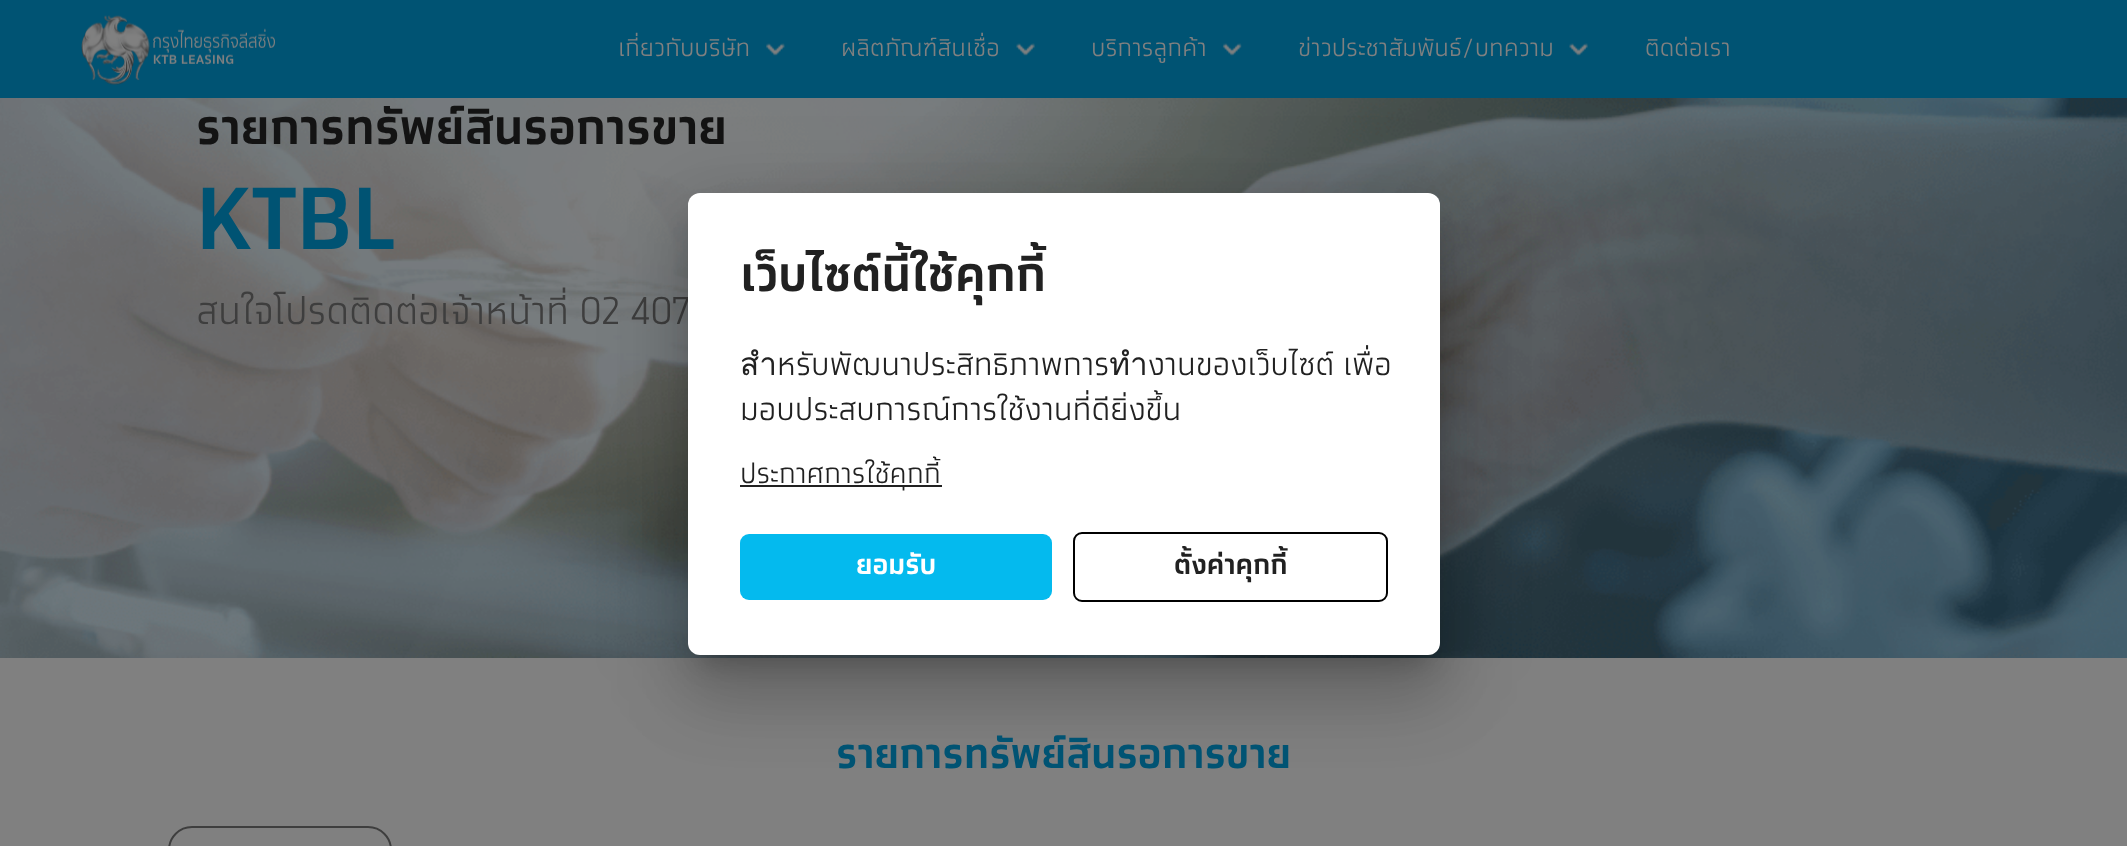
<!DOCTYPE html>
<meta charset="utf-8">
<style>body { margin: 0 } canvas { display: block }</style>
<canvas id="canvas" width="2127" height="846"></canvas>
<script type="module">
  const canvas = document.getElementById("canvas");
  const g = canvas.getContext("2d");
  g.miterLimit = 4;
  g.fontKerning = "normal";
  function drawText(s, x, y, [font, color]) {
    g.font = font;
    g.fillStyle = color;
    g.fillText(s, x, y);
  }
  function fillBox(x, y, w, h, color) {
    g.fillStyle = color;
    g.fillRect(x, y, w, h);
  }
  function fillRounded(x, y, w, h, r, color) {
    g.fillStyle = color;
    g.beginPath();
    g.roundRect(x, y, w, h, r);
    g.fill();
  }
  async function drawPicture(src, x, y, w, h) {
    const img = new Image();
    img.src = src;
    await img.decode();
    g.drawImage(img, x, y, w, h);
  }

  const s1 = ["24.5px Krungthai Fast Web", "#808080"];
  const s2 = ["bold 49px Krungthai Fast", "#131313"];
  const s3 = ["bold 87.5px Krungthai Fast", "#005373"];
  const s4 = ["38.5px Krungthai Fast Web", "#3E3E3E"];
  const s5 = ["bold 49px Krungthai Fast", "#212121"];
  const s6 = ["31.5px Krungthai Fast Web", "#212121"];
  const s7 = ["28px Krungthai Fast Web", "#212121"];
  const s8 = ["bold 28px Krungthai Fast", "#FFFFFF"];
  const s9 = ["bold 28px Krungthai Fast", "#212121"];
  const s10 = ["bold 42px Krungthai Fast", "#005373"];

  fillBox(0, 0, 2127, 846, "#808080");
  fillBox(0, 0, 2127, 98, "#005373");
  await drawPicture("pic1.png", 81, 15, 194, 70);
  drawText("เกี่ยวกับบริษัท", 618, 56, s1);
  await drawPicture("pic2.png", 766, 43, 19, 13);
  await drawPicture("pic3.png", 766, 43, 19, 13);
  drawText("ผลิตภัณฑ์สินเชื่อ", 841, 56, s1);
  await drawPicture("pic4.png", 1016, 43, 19, 13);
  await drawPicture("pic5.png", 1016, 43, 19, 13);
  drawText("บริการลูกค้า", 1091, 56, s1);
  await drawPicture("pic6.png", 1222, 43, 20, 13);
  await drawPicture("pic7.png", 1223, 43, 19, 13);
  drawText("ข่าวประชาสัมพันธ์/บทความ", 1298, 56, s1);
  await drawPicture("pic8.png", 1569, 43, 19, 13);
  await drawPicture("pic9.png", 1569, 43, 19, 13);
  drawText("ติดต่อเรา", 1645, 56, s1);
  await drawPicture("pic10.png", 0, 98, 2127, 560);
  drawText("รายการทรัพย์สินรอการขาย", 196, 144, s2);
  drawText("KTBL", 196, 249, s3);
  drawText("สนใจโปรดติดต่อเจ้าหน้าที่ 02 407", 196, 324, s4);
  g.fillStyle = "rgba(0, 0, 0, 0.12)";
  g.filter = "blur(40px)";
  g.beginPath();
  g.roundRect(674, 194, 780, 490, 26);
  g.fill();
  g.filter = "none";
  g.fillStyle = "rgba(0, 0, 0, 0.14)";
  g.filter = "blur(33px)";
  g.beginPath();
  g.roundRect(683, 229, 763, 473, 18);
  g.fill();
  g.filter = "none";
  g.fillStyle = "rgba(0, 0, 0, 0.2)";
  g.filter = "blur(13px)";
  g.beginPath();
  g.rect(700, 224, 728, 438);
  g.fill();
  g.filter = "none";
  fillRounded(688, 193, 752, 462, 12, "#FFFFFF");
  drawText("เว็บไซต์นี้ใช้คุกกี้", 740, 291, s5);
  drawText("สำหรับพัฒนาประสิทธิภาพการทำงานของเว็บไซต์ เพื่อ", 740, 375, s6);
  drawText("มอบประสบการณ์การใช้งานที่ดียิ่งขึ้น", 740, 420, s6);
  fillBox(740, 485, 202, 2, "#212121");
  drawText("ประกาศการใช้คุกกี้", 740, 483, s7);
  fillRounded(740, 534, 312, 66, 9, "#04BAEE");
  drawText("ยอมรับ", 856, 574, s8);
  g.beginPath();
  g.roundRect(1074, 533, 313, 68, 8);
  g.strokeStyle = "#000000";
  g.lineWidth = 2;
  g.stroke();
  drawText("ตั้งค่าคุกกี้", 1174, 574, s9);
  drawText("รายการทรัพย์สินรอการขาย", 836, 768, s10);
  g.beginPath();
  g.roundRect(169, 827, 222, 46, 25);
  g.strokeStyle = "#3E3E3E";
  g.stroke();
</script>
